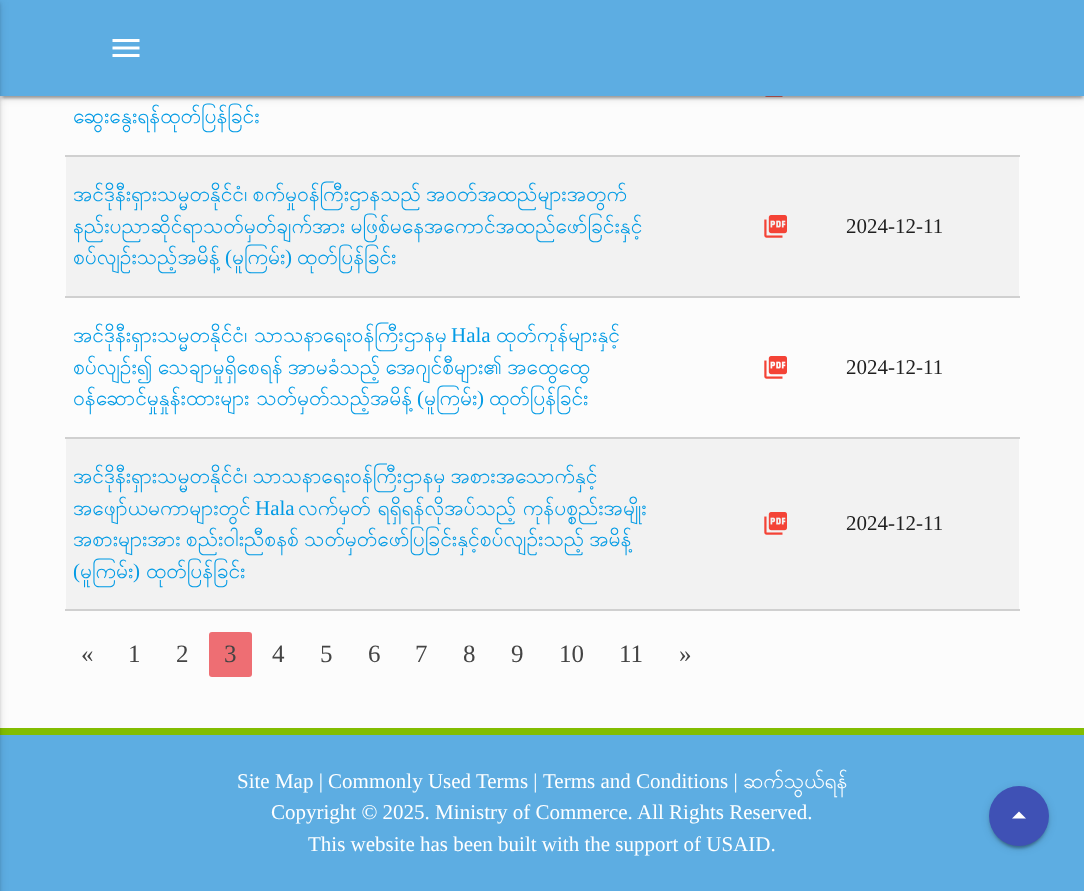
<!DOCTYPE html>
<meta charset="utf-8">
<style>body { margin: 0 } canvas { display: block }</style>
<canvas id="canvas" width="1084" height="891"></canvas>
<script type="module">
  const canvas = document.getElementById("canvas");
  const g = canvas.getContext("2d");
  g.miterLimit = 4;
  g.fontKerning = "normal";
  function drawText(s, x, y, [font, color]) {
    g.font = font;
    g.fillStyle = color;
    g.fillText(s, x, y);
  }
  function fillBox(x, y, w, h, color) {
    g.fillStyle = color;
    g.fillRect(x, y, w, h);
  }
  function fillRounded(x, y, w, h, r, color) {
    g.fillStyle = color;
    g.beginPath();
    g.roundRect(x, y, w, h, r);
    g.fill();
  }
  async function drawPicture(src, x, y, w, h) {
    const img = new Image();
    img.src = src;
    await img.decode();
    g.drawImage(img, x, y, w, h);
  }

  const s1 = ["21px Padauk", "#039BE5"];
  const s2 = ["21px Liberation Serif", "#039BE5"];
  const s3 = ["21px Liberation Serif", "#1F1F1F"];
  const s4 = ["25px Liberation Serif", "#444444"];
  const s5 = ["21px Liberation Serif", "#FFFFFF"];
  const s6 = ["21px Padauk", "#FFFFFF"];

  fillBox(0, 0, 1084, 891, "#FCFCFC");
  await drawPicture("pic2.png", 765, 96, 18, 1);
  g.fillStyle = "rgba(0, 0, 0, 0.2)";
  g.filter = "blur(1px)";
  g.beginPath();
  g.rect(3, 8, 1079, 90);
  g.fill();
  g.filter = "none";
  g.fillStyle = "rgba(0, 0, 0, 0.12)";
  g.filter = "blur(4px)";
  g.beginPath();
  g.rect(0, 2, 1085, 96);
  g.fill();
  g.filter = "none";
  g.fillStyle = "rgba(0, 0, 0, 0.14)";
  g.filter = "blur(1.5px)";
  g.beginPath();
  g.rect(0, 3, 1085, 96);
  g.fill();
  g.filter = "none";
  fillBox(0, 0, 1084, 96, "#5DADE2");
  fillBox(0, 735, 1084, 156, "#5DADE2");
  fillBox(0, 728, 1084, 7, "#82BD01");
  g.fillStyle = "rgba(0, 0, 0, 0.12)";
  g.filter = "blur(4px)";
  g.beginPath();
  g.rect(-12, 2, 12, 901);
  g.fill();
  g.filter = "none";
  g.fillStyle = "rgba(0, 0, 0, 0.14)";
  g.filter = "blur(1.5px)";
  g.beginPath();
  g.rect(-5, 3, 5, 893);
  g.fill();
  g.filter = "none";
  await drawPicture("pic1.png", 112, 39, 28, 18);
  fillBox(65, 155, 955, 2, "#D0D0D0");
  drawText("ဆွေးနွေးရန်ထုတ်ပြန်ခြင်း", 73, 123, s1);
  fillBox(66, 157, 953, 139, "#F2F2F2");
  fillBox(65, 296, 955, 2, "#D0D0D0");
  g.wordSpacing = "-2.5px";
  drawText("အင်ဒိုနီးရှားသမ္မတနိုင်ငံ၊ စက်မှုဝန်ကြီးဌာနသည် အဝတ်အထည်များအတွက်", 73, 201, s1);
  drawText("နည်းပညာဆိုင်ရာသတ်မှတ်ချက်အား မဖြစ်မနေအကောင်အထည်ဖော်ခြင်းနှင့်", 73, 233, s1);
  g.wordSpacing = "0px";
  drawText("စပ်လျဉ်းသည့်အမိန့်", 73, 264, s1);
  drawText("(", 225, 264, s2);
  drawText("မူကြမ်း", 232, 264, s1);
  drawText(")", 285, 264, s2);
  drawText("ထုတ်ပြန်ခြင်း", 297, 264, s1);
  await drawPicture("pic3.png", 764, 215, 23, 23);
  drawText("2024-12-11", 846, 233, s3);
  fillBox(65, 437, 955, 2, "#D0D0D0");
  g.wordSpacing = "-1px";
  drawText("အင်ဒိုနီးရှားသမ္မတနိုင်ငံ၊ သာသနာရေးဝန်ကြီးဌာနမှ", 73, 342, s1);
  g.wordSpacing = "0px";
  drawText("Hala", 451, 342, s2);
  drawText("ထုတ်ကုန်များနှင့်", 496, 342, s1);
  g.wordSpacing = "-2.5px";
  drawText("စပ်လျဉ်း၍ သေချာမှုရှိစေရန် အာမခံသည့် အေဂျင်စီများ၏ အထွေထွေ", 73, 374, s1);
  g.wordSpacing = "-1px";
  drawText("ဝန်ဆောင်မှုနှုန်းထားများ သတ်မှတ်သည့်အမိန့်", 73, 405, s1);
  g.wordSpacing = "0px";
  drawText("(", 417, 405, s2);
  drawText("မူကြမ်း", 424, 405, s1);
  drawText(")", 477, 405, s2);
  drawText("ထုတ်ပြန်ခြင်း", 489, 405, s1);
  await drawPicture("pic4.png", 764, 356, 23, 23);
  drawText("2024-12-11", 846, 374, s3);
  fillBox(66, 439, 953, 170, "#F2F2F2");
  fillBox(65, 609, 955, 2, "#D0D0D0");
  g.wordSpacing = "-2.5px";
  drawText("အင်ဒိုနီးရှားသမ္မတနိုင်ငံ၊ သာသနာရေးဝန်ကြီးဌာနမှ အစားအသောက်နှင့်", 73, 483, s1);
  g.wordSpacing = "0px";
  drawText("အဖျော်ယမကာများတွင်", 73, 515, s1);
  drawText("Hala", 255, 515, s2);
  g.wordSpacing = "-1px";
  drawText("လက်မှတ် ရရှိရန်လိုအပ်သည့် ကုန်ပစ္စည်းအမျိုး", 298, 515, s1);
  g.wordSpacing = "-2.5px";
  drawText("အစားများအား စည်းဝါးညီစနစ် သတ်မှတ်ဖော်ပြခြင်းနှင့်စပ်လျဉ်းသည့် အမိန့်", 73, 546, s1);
  g.wordSpacing = "0px";
  drawText("(", 73, 578, s2);
  drawText("မူကြမ်း", 80, 578, s1);
  drawText(")", 133, 578, s2);
  drawText("ထုတ်ပြန်ခြင်း", 146, 578, s1);
  await drawPicture("pic3.png", 764, 512, 23, 23);
  drawText("2024-12-11", 846, 530, s3);
  drawText("«", 81, 662, s4);
  drawText("1", 128, 662, s4);
  drawText("2", 176, 662, s4);
  fillRounded(209, 632, 43, 45, 3, "#EE6E73");
  drawText("3", 224, 662, s4);
  drawText("4", 272, 662, s4);
  drawText("5", 320, 662, s4);
  drawText("6", 368, 662, s4);
  drawText("7", 415, 662, s4);
  drawText("8", 463, 662, s4);
  drawText("9", 511, 662, s4);
  drawText("10", 559, 662, s4);
  drawText("11", 619, 662, s4);
  drawText("»", 679, 662, s4);
  drawText("Site Map | Commonly Used Terms |", 237, 788, s5);
  drawText("Terms and Conditions |", 543, 788, s5);
  drawText("ဆက်သွယ်ရန်", 743, 788, s6);
  g.fillStyle = "rgba(0, 0, 0, 0.2)";
  g.filter = "blur(1px)";
  g.beginPath();
  g.roundRect(992, 794, 54, 54, 27);
  g.fill();
  g.filter = "none";
  g.fillStyle = "rgba(0, 0, 0, 0.12)";
  g.filter = "blur(4px)";
  g.beginPath();
  g.roundRect(989, 788, 60, 60, 30);
  g.fill();
  g.filter = "none";
  g.fillStyle = "rgba(0, 0, 0, 0.14)";
  g.filter = "blur(1.5px)";
  g.beginPath();
  g.roundRect(989, 789, 60, 60, 30);
  g.fill();
  g.filter = "none";
  g.fillStyle = "#3F51B5";
  g.beginPath();
  g.arc(1019, 816, 30, 0, Math.PI * 2);
  g.fill();
  g.fillStyle = "#FFFFFF";
  g.beginPath();
  g.moveTo(1012, 818.5);
  g.lineTo(1019, 811.5);
  g.lineTo(1026, 818.5);
  g.closePath();
  g.fill();
  drawText("Copyright © 2025. Ministry of Commerce.", 271, 819, s5);
  drawText("All Rights Reserved.", 637, 819, s5);
  drawText("This website has been built with the support of USAID.", 308, 851, s5);
</script>
